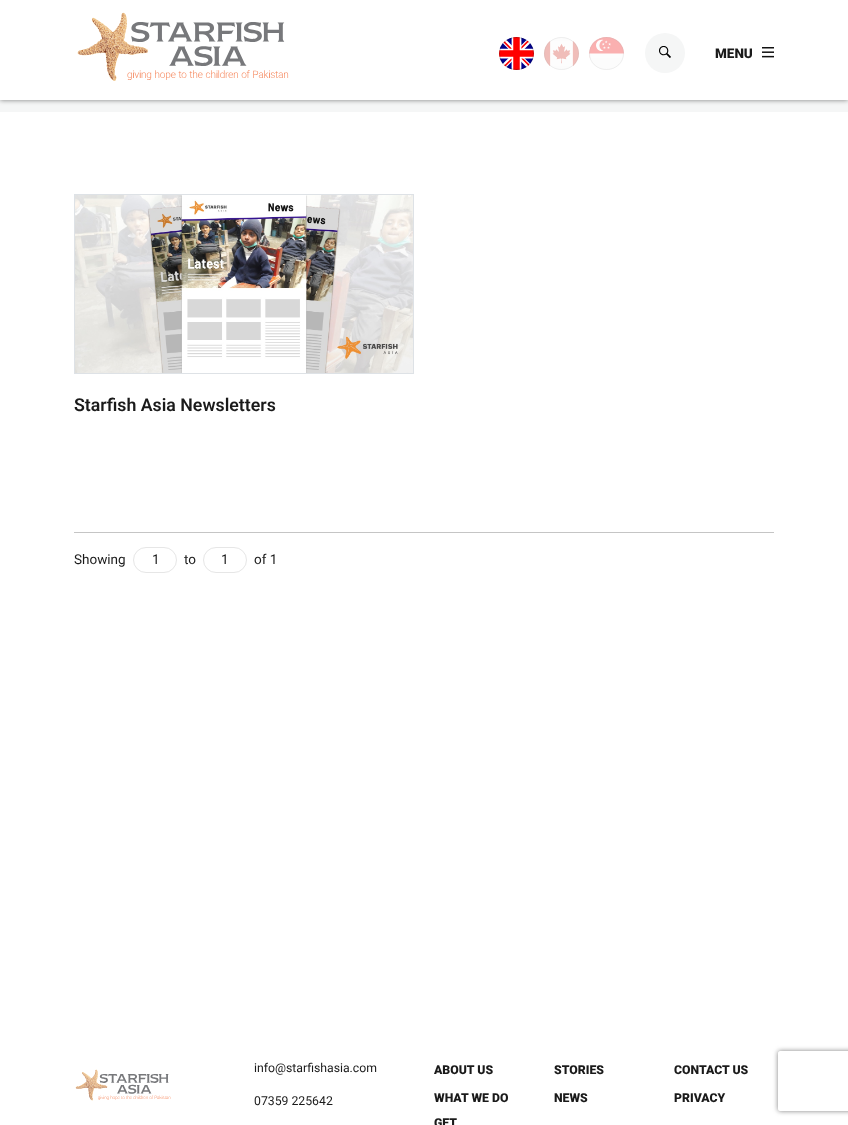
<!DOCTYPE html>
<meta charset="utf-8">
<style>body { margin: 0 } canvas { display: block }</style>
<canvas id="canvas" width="848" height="1125"></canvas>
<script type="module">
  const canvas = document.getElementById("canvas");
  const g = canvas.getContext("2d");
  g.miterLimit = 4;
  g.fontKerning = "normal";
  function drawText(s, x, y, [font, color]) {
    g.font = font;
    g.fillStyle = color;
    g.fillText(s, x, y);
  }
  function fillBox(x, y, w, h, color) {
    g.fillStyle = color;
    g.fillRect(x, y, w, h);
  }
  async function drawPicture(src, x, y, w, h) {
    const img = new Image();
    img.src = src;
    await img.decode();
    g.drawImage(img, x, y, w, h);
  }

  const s1 = ["900 13.5px Roboto", "#1A1A1A"];
  const s2 = ["600 17.75px Roboto", "#1A1A1A"];
  const s3 = ["13.5px Roboto", "#1A1A1A"];
  const s4 = ["12.25px Roboto", "#1A1A1A"];
  const s5 = ["900 12.25px Roboto", "#1A1A1A"];

  fillBox(0, 0, 848, 1125, "#FFFFFF");
  fillBox(0, 100, 848, 12, "#F5F6F6");
  g.fillStyle = "rgba(0, 0, 0, 0.5)";
  g.filter = "blur(2.5px)";
  g.beginPath();
  g.rect(0, 0, 848, 100);
  g.fill();
  g.filter = "none";
  fillBox(0, 0, 848, 100, "#FFFFFF");
  await drawPicture("pic1.png", 77, 12, 212, 69);
  await drawPicture("pic2.png", 499, 37, 35, 33);
  g.beginPath();
  g.moveTo(516.5, 37.5);
  g.bezierCurveTo(526, 37.5, 533.5, 44.5, 533.5, 53.5);
  g.bezierCurveTo(533.5, 62.5, 526, 69.5, 516.5, 69.5);
  g.bezierCurveTo(507, 69.5, 499.5, 62.5, 499.5, 53.5);
  g.bezierCurveTo(499.5, 44.5, 507, 37.5, 516.5, 37.5);
  g.closePath();
  g.strokeStyle = "rgba(0, 0, 0, 0.2)";
  g.stroke();
  g.fillStyle = "#FCFCFC";
  g.beginPath();
  g.ellipse(561.5, 53.5, 17.5, 16.5, 0, 0, Math.PI * 2);
  g.fill();
  await drawPicture("pic3.png", 544, 41, 35, 25);
  g.beginPath();
  g.moveTo(561.5, 37.5);
  g.bezierCurveTo(571, 37.5, 578.5, 44.5, 578.5, 53.5);
  g.bezierCurveTo(578.5, 62.5, 571, 69.5, 561.5, 69.5);
  g.bezierCurveTo(552, 69.5, 544.5, 62.5, 544.5, 53.5);
  g.bezierCurveTo(544.5, 44.5, 552, 37.5, 561.5, 37.5);
  g.closePath();
  g.strokeStyle = "rgba(179, 179, 179, 0.2)";
  g.stroke();
  g.beginPath();
  g.ellipse(606.5, 53.5, 17.5, 16.5, 0, 0, Math.PI * 2);
  g.fill();
  await drawPicture("pic4.png", 589, 37, 35, 21);
  g.beginPath();
  g.moveTo(606.5, 37.5);
  g.bezierCurveTo(616, 37.5, 623.5, 44.5, 623.5, 53.5);
  g.bezierCurveTo(623.5, 62.5, 616, 69.5, 606.5, 69.5);
  g.bezierCurveTo(597, 69.5, 589.5, 62.5, 589.5, 53.5);
  g.bezierCurveTo(589.5, 44.5, 597, 37.5, 606.5, 37.5);
  g.closePath();
  g.stroke();
  g.fillStyle = "#F5F6F6";
  g.beginPath();
  g.arc(665, 53, 20, 0, Math.PI * 2);
  g.fill();
  await drawPicture("pic5.png", 659, 46, 12, 12);
  drawText("MENU", 715, 58, s1);
  await drawPicture("pic6.png", 762, 47, 12, 11);
  await drawPicture("pic7.png", 75, 195, 338, 178);
  g.strokeStyle = "#DEE2E6";
  g.strokeRect(74.5, 194.5, 339, 179);
  drawText("Starfish Asia Newsletters", 74, 411, s2);
  fillBox(74, 532, 700, 1, "#C5C5C5");
  drawText("Showing", 74, 564, s3);
  g.beginPath();
  g.roundRect(133.5, 547.5, 43, 25, 12.5);
  g.strokeStyle = "#E6E6E6";
  g.stroke();
  drawText("1", 152, 564, s3);
  drawText("to", 184, 564, s3);
  g.beginPath();
  g.roundRect(203.5, 547.5, 43, 25, 12.5);
  g.stroke();
  drawText("1", 221, 564, s3);
  drawText("of 1", 254, 564, s3);
  await drawPicture("pic8.png", 75, 1069, 96, 32);
  drawText("info@starfishasia.com", 254, 1072, s4);
  drawText("07359 225642", 254, 1105, s4);
  drawText("ABOUT US", 434, 1074, s5);
  drawText("WHAT WE DO", 434, 1102, s5);
  drawText("GET", 434, 1127, s5);
  drawText("STORIES", 554, 1074, s5);
  drawText("NEWS", 554, 1102, s5);
  drawText("CONTACT US", 674, 1074, s5);
  drawText("PRIVACY", 674, 1102, s5);
  g.save();
  g.beginPath();
  g.moveTo(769, 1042);
  g.lineTo(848, 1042);
  g.lineTo(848, 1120);
  g.lineTo(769, 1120);
  g.closePath();
  g.moveTo(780, 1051);
  g.lineTo(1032, 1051);
  g.bezierCurveTo(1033, 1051, 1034, 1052, 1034, 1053);
  g.lineTo(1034, 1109);
  g.bezierCurveTo(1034, 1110, 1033, 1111, 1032, 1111);
  g.lineTo(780, 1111);
  g.bezierCurveTo(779, 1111, 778, 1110, 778, 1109);
  g.lineTo(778, 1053);
  g.bezierCurveTo(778, 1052, 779, 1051, 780, 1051);
  g.closePath();
  g.clip("evenodd");
  g.fillStyle = "#808080";
  g.filter = "blur(2.5px)";
  g.beginPath();
  g.roundRect(778, 1051, 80, 60, 2);
  g.fill();
  g.filter = "none";
  g.restore();
</script>
